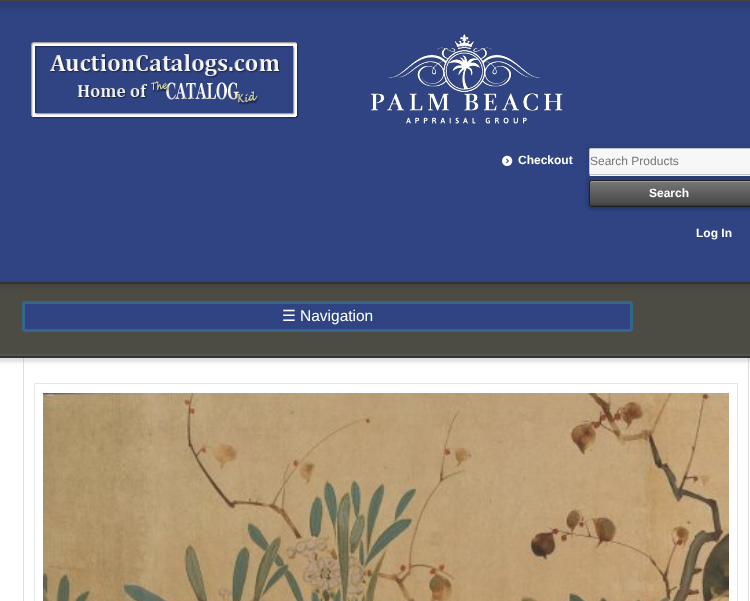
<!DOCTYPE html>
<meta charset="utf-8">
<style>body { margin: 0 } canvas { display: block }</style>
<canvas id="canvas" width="750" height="601"></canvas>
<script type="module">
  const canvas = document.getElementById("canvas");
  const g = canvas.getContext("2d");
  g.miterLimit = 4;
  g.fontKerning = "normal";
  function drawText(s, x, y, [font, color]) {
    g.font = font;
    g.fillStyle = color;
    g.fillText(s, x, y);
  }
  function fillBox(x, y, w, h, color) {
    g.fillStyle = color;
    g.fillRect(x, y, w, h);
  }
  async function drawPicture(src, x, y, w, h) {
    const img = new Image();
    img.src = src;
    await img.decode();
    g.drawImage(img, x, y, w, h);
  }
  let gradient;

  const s1 = ["bold 12px Liberation Sans", "#FFFFFF"];
  const s2 = ["12px Liberation Sans", "#757575"];
  const s3 = ["15.5px DejaVu Sans", "#FFFFFF"];
  const s4 = ["15.5px Liberation Sans", "#FFFFFF"];

  fillBox(0, 0, 750, 601, "#FFFFFF");
  fillBox(0, 1, 750, 281, "#304484");
  g.fillStyle = "#000000";
  g.filter = "blur(4px)";
  g.beginPath();
  g.rect(-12, 3, 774, 1);
  g.fill();
  g.filter = "none";
  fillBox(0, 0, 750, 1, "#444444");
  await drawPicture("pic1.png", 31, 42, 268, 77);
  await drawPicture("pic2.png", 370, 34, 193, 90);
  await drawPicture("pic3.png", 502, 155, 11, 11);
  drawText("Checkout", 518, 164, s1);
  g.beginPath();
  g.moveTo(589, 174);
  g.lineTo(590, 176);
  g.lineTo(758, 176);
  g.bezierCurveTo(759, 176, 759, 175, 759, 174);
  g.bezierCurveTo(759, 174, 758, 175, 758, 175);
  g.lineTo(590, 175);
  g.bezierCurveTo(590, 175, 589, 174, 589, 174);
  g.closePath();
  g.fill();
  g.strokeStyle = "rgba(0, 0, 0, 0.03)";
  g.lineWidth = 4;
  g.strokeRect(587, 146, 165, 31);
  g.fillStyle = "#F7F7F7";
  g.beginPath();
  g.roundRect(589.5, 148.5, 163, 26, 1);
  g.fill();
  g.strokeStyle = "#BFC3C4";
  g.lineWidth = 1;
  g.stroke();
  drawText("Search Products", 590, 165, s2);
  g.fillStyle = "rgba(0, 0, 0, 0.2)";
  g.filter = "blur(1px)";
  g.beginPath();
  g.roundRect(589, 181, 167, 27, 2.5);
  g.fill();
  g.filter = "none";
  g.beginPath();
  g.roundRect(587, 178, 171, 31, 4);
  g.strokeStyle = "rgba(0, 0, 0, 0.07)";
  g.lineWidth = 4;
  g.stroke();
  gradient = g.createLinearGradient(674, 181, 674, 206);
  gradient.addColorStop(0, "#777777");
  gradient.addColorStop(1, "#444444");
  g.fillStyle = gradient;
  g.beginPath();
  g.roundRect(590, 181, 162, 25, 1.5);
  g.fill();
  g.fillStyle = "#333333";
  g.beginPath();
  g.moveTo(590, 204);
  g.bezierCurveTo(590, 205, 590, 206, 592, 206);
  g.lineTo(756, 206);
  g.bezierCurveTo(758, 206, 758, 205, 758, 204);
  g.lineTo(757, 205);
  g.lineTo(591, 205);
  g.closePath();
  g.fill();
  g.fillStyle = "#999999";
  g.beginPath();
  g.moveTo(591, 182);
  g.lineTo(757, 182);
  g.lineTo(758, 183);
  g.bezierCurveTo(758, 182, 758, 181, 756, 181);
  g.lineTo(592, 181);
  g.bezierCurveTo(590, 181, 590, 182, 590, 183);
  g.closePath();
  g.fill();
  g.beginPath();
  g.roundRect(589.5, 180.5, 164, 26, 2);
  g.strokeStyle = "#222222";
  g.lineWidth = 1;
  g.stroke();
  drawText("Search", 649, 197, s1);
  drawText("Log In", 696, 237, s1);
  fillBox(0, 284, 750, 72, "#4D4C44");
  g.fillStyle = "#333333";
  g.filter = "blur(2.5px)";
  g.beginPath();
  g.rect(-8, 284, 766, 2);
  g.fill();
  g.filter = "none";
  fillBox(0, 282, 750, 2, "#333333");
  g.fillStyle = "#304484";
  g.beginPath();
  g.roundRect(23.5, 302.5, 608, 28, 1.5);
  g.fill();
  g.strokeStyle = "#336688";
  g.lineWidth = 3;
  g.stroke();
  drawText("☰", 282, 321, s3);
  drawText("Navigation", 300, 321, s4);
  fillBox(748, 358, 1, 243, "#DEDEDE");
  fillBox(23, 358, 1, 243, "#DEDEDE");
  g.fillStyle = "#999999";
  g.filter = "blur(2.5px)";
  g.beginPath();
  g.rect(-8, 358, 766, 2);
  g.fill();
  g.filter = "none";
  fillBox(0, 356, 750, 2, "#333333");
  g.strokeStyle = "#E3E7E8";
  g.lineWidth = 1;
  g.strokeRect(34.5, 383.5, 703, 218);
  await drawPicture("pic4.png", 43, 393, 686, 208);
</script>
